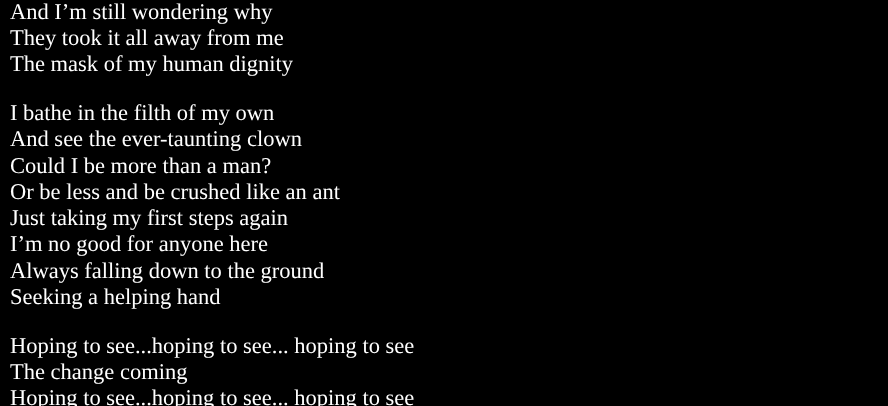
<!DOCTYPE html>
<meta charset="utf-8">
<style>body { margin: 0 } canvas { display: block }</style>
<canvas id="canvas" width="888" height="406"></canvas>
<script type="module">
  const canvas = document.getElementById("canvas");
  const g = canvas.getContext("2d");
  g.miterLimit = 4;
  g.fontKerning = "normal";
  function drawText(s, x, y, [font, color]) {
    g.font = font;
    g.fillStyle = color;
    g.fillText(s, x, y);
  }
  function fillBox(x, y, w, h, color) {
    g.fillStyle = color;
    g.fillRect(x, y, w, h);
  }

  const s1 = ["22.5px Liberation Serif", "#FFFFFF"];

  fillBox(0, 0, 888, 406, "#000000");
  drawText("And I’m still wondering why", 10, 19, s1);
  drawText("They took it all away from me", 10, 45, s1);
  drawText("The mask of my human dignity", 10, 71, s1);
  drawText("I bathe in the filth of my own", 10, 120, s1);
  drawText("And see the ever-taunting clown", 10, 146, s1);
  drawText("Could I be more than a man?", 10, 173, s1);
  drawText("Or be less and be crushed like an ant", 10, 199, s1);
  drawText("Just taking my first steps again", 10, 225, s1);
  drawText("I’m no good for anyone here", 10, 251, s1);
  drawText("Always falling down to the ground", 10, 278, s1);
  drawText("Seeking a helping hand", 10, 304, s1);
  drawText("Hoping to see...hoping to see... hoping to see", 10, 353, s1);
  drawText("The change coming", 10, 379, s1);
  drawText("Hoping to see...hoping to see... hoping to see", 10, 405, s1);
</script>
